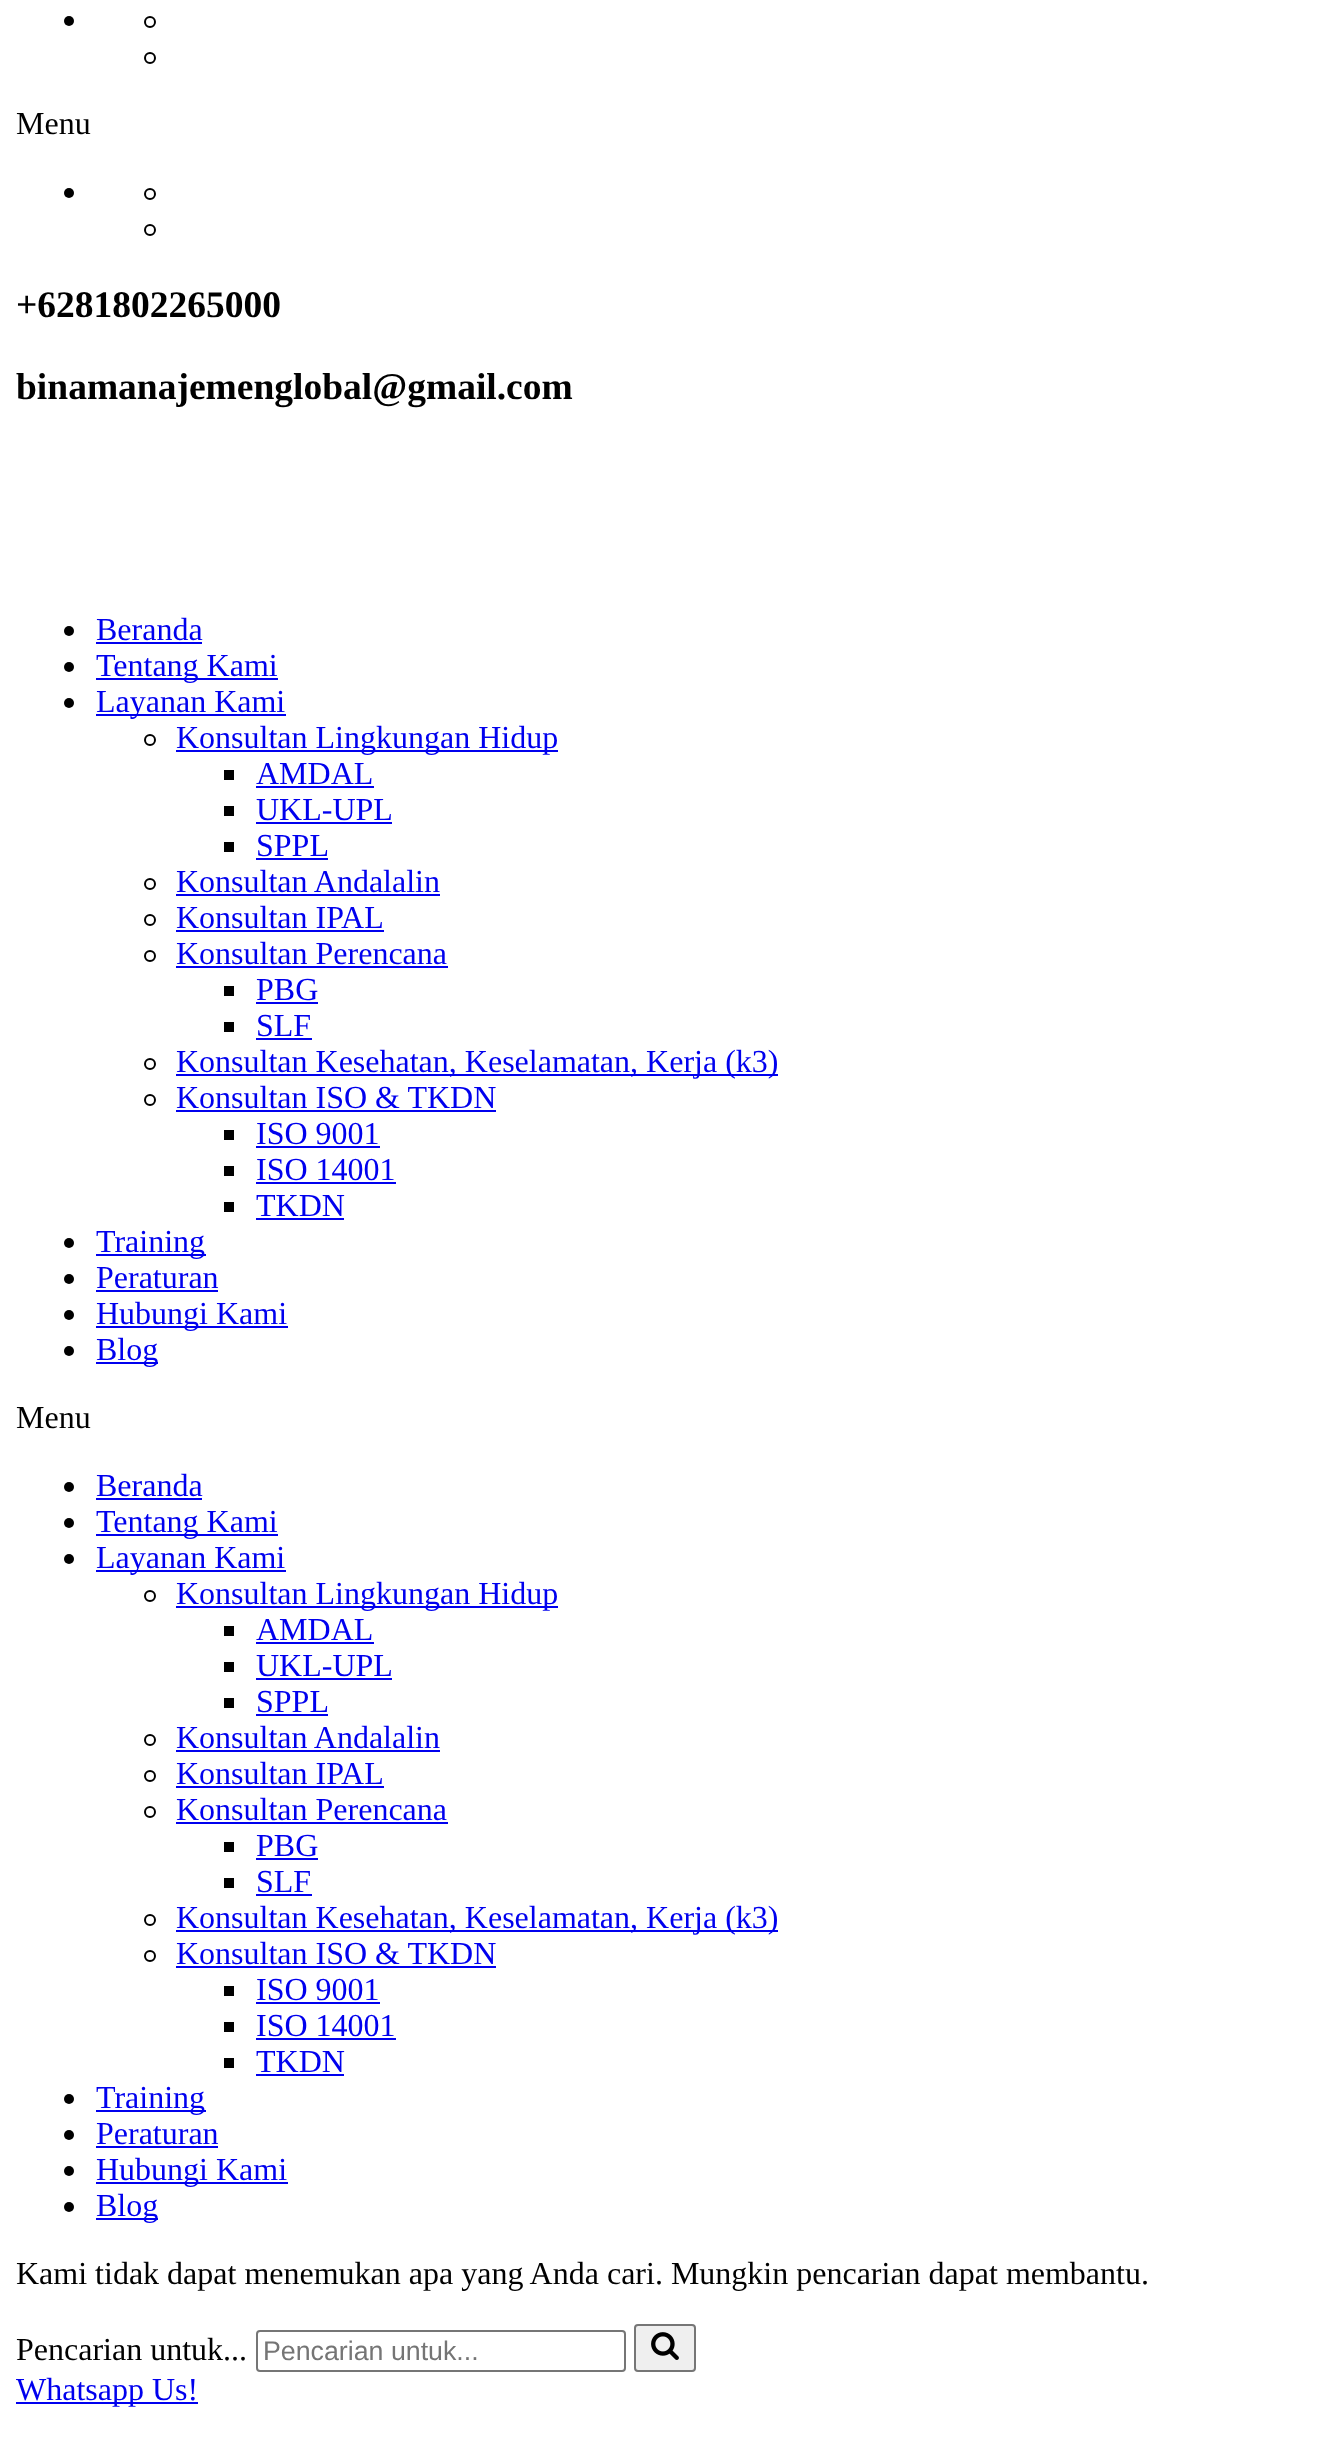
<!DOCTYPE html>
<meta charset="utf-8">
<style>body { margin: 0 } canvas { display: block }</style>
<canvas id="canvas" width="1322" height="2459"></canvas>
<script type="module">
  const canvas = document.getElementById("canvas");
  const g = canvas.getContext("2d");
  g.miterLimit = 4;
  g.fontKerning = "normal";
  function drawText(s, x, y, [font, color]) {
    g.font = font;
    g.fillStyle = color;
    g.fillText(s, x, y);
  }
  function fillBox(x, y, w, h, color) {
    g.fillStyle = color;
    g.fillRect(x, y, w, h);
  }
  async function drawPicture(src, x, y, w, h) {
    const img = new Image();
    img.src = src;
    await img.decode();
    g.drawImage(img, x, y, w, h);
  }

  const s1 = ["32px Liberation Serif", "#000000"];
  const s2 = ["bold 37.5px Liberation Serif", "#000000"];
  const s3 = ["32px Liberation Serif", "#0000EE"];
  const s4 = ["26.75px Liberation Sans", "#757575"];

  fillBox(0, 0, 1322, 2459, "#FFFFFF");
  g.fillStyle = "#000000";
  g.beginPath();
  g.arc(69, 21, 5, 0, Math.PI * 2);
  g.fill();
  g.beginPath();
  g.arc(150, 22, 5, 0, Math.PI * 2);
  g.strokeStyle = "#000000";
  g.lineWidth = 2;
  g.stroke();
  g.beginPath();
  g.arc(150, 58, 5, 0, Math.PI * 2);
  g.stroke();
  drawText("Menu", 16, 134, s1);
  g.beginPath();
  g.arc(69, 193, 5, 0, Math.PI * 2);
  g.fill();
  g.beginPath();
  g.arc(150, 194, 5, 0, Math.PI * 2);
  g.stroke();
  g.beginPath();
  g.arc(150, 230, 5, 0, Math.PI * 2);
  g.stroke();
  drawText("+6281802265000", 16, 317, s2);
  drawText("binamanajemenglobal@gmail.com", 16, 399, s2);
  g.beginPath();
  g.arc(69, 631, 5, 0, Math.PI * 2);
  g.fill();
  drawText("Beranda", 96, 640, s3);
  fillBox(96, 642, 106, 2, "#0000EE");
  g.fillStyle = "#000000";
  g.beginPath();
  g.arc(69, 667, 5, 0, Math.PI * 2);
  g.fill();
  fillBox(96, 678, 182, 2, "#0000EE");
  drawText("Tentang Kami", 96, 676, s3);
  g.fillStyle = "#000000";
  g.beginPath();
  g.arc(69, 703, 5, 0, Math.PI * 2);
  g.fill();
  fillBox(96, 714, 190, 2, "#0000EE");
  drawText("Layanan Kami", 96, 712, s3);
  g.beginPath();
  g.arc(150, 740, 5, 0, Math.PI * 2);
  g.stroke();
  fillBox(176, 750, 382, 2, "#0000EE");
  drawText("Konsultan Lingkungan Hidup", 176, 748, s3);
  fillBox(224, 770, 10, 10, "#000000");
  drawText("AMDAL", 256, 784, s3);
  fillBox(256, 786, 118, 2, "#0000EE");
  fillBox(224, 806, 10, 10, "#000000");
  drawText("UKL-UPL", 256, 820, s3);
  fillBox(256, 822, 136, 2, "#0000EE");
  fillBox(224, 842, 10, 10, "#000000");
  drawText("SPPL", 256, 856, s3);
  fillBox(256, 858, 72, 2, "#0000EE");
  g.beginPath();
  g.arc(150, 884, 5, 0, Math.PI * 2);
  g.stroke();
  drawText("Konsultan Andalalin", 176, 892, s3);
  fillBox(176, 894, 264, 2, "#0000EE");
  g.beginPath();
  g.arc(150, 920, 5, 0, Math.PI * 2);
  g.stroke();
  drawText("Konsultan IPAL", 176, 928, s3);
  fillBox(176, 930, 208, 2, "#0000EE");
  g.beginPath();
  g.arc(150, 956, 5, 0, Math.PI * 2);
  g.stroke();
  drawText("Konsultan Perencana", 176, 964, s3);
  fillBox(176, 966, 272, 2, "#0000EE");
  fillBox(224, 986, 10, 10, "#000000");
  drawText("PBG", 256, 1000, s3);
  fillBox(256, 1002, 62, 2, "#0000EE");
  fillBox(224, 1022, 10, 10, "#000000");
  drawText("SLF", 256, 1036, s3);
  fillBox(256, 1038, 56, 2, "#0000EE");
  g.beginPath();
  g.arc(150, 1064, 5, 0, Math.PI * 2);
  g.stroke();
  fillBox(176, 1074, 602, 2, "#0000EE");
  drawText("Konsultan Kesehatan, Keselamatan, Kerja (k3)", 176, 1072, s3);
  g.beginPath();
  g.arc(150, 1100, 5, 0, Math.PI * 2);
  g.stroke();
  drawText("Konsultan ISO & TKDN", 176, 1108, s3);
  fillBox(176, 1110, 320, 2, "#0000EE");
  fillBox(224, 1130, 10, 10, "#000000");
  drawText("ISO 9001", 256, 1144, s3);
  fillBox(256, 1146, 124, 2, "#0000EE");
  fillBox(224, 1166, 10, 10, "#000000");
  drawText("ISO 14001", 256, 1180, s3);
  fillBox(256, 1182, 140, 2, "#0000EE");
  fillBox(224, 1202, 10, 10, "#000000");
  drawText("TKDN", 256, 1216, s3);
  fillBox(256, 1218, 88, 2, "#0000EE");
  g.fillStyle = "#000000";
  g.beginPath();
  g.arc(69, 1243, 5, 0, Math.PI * 2);
  g.fill();
  fillBox(96, 1254, 110, 2, "#0000EE");
  drawText("Training", 96, 1252, s3);
  g.fillStyle = "#000000";
  g.beginPath();
  g.arc(69, 1279, 5, 0, Math.PI * 2);
  g.fill();
  drawText("Peraturan", 96, 1288, s3);
  fillBox(96, 1290, 122, 2, "#0000EE");
  g.fillStyle = "#000000";
  g.beginPath();
  g.arc(69, 1315, 5, 0, Math.PI * 2);
  g.fill();
  fillBox(96, 1326, 192, 2, "#0000EE");
  drawText("Hubungi Kami", 96, 1324, s3);
  g.fillStyle = "#000000";
  g.beginPath();
  g.arc(69, 1351, 5, 0, Math.PI * 2);
  g.fill();
  fillBox(96, 1362, 62, 2, "#0000EE");
  drawText("Blog", 96, 1360, s3);
  drawText("Menu", 16, 1428, s1);
  g.beginPath();
  g.arc(69, 1487, 5, 0, Math.PI * 2);
  g.fill();
  drawText("Beranda", 96, 1496, s3);
  fillBox(96, 1498, 106, 2, "#0000EE");
  g.fillStyle = "#000000";
  g.beginPath();
  g.arc(69, 1523, 5, 0, Math.PI * 2);
  g.fill();
  fillBox(96, 1534, 182, 2, "#0000EE");
  drawText("Tentang Kami", 96, 1532, s3);
  g.fillStyle = "#000000";
  g.beginPath();
  g.arc(69, 1559, 5, 0, Math.PI * 2);
  g.fill();
  fillBox(96, 1570, 190, 2, "#0000EE");
  drawText("Layanan Kami", 96, 1568, s3);
  g.beginPath();
  g.arc(150, 1596, 5, 0, Math.PI * 2);
  g.stroke();
  fillBox(176, 1606, 382, 2, "#0000EE");
  drawText("Konsultan Lingkungan Hidup", 176, 1604, s3);
  fillBox(224, 1626, 10, 10, "#000000");
  drawText("AMDAL", 256, 1640, s3);
  fillBox(256, 1642, 118, 2, "#0000EE");
  fillBox(224, 1662, 10, 10, "#000000");
  drawText("UKL-UPL", 256, 1676, s3);
  fillBox(256, 1678, 136, 2, "#0000EE");
  fillBox(224, 1698, 10, 10, "#000000");
  drawText("SPPL", 256, 1712, s3);
  fillBox(256, 1714, 72, 2, "#0000EE");
  g.beginPath();
  g.arc(150, 1740, 5, 0, Math.PI * 2);
  g.stroke();
  drawText("Konsultan Andalalin", 176, 1748, s3);
  fillBox(176, 1750, 264, 2, "#0000EE");
  g.beginPath();
  g.arc(150, 1776, 5, 0, Math.PI * 2);
  g.stroke();
  drawText("Konsultan IPAL", 176, 1784, s3);
  fillBox(176, 1786, 208, 2, "#0000EE");
  g.beginPath();
  g.arc(150, 1812, 5, 0, Math.PI * 2);
  g.stroke();
  drawText("Konsultan Perencana", 176, 1820, s3);
  fillBox(176, 1822, 272, 2, "#0000EE");
  fillBox(224, 1842, 10, 10, "#000000");
  drawText("PBG", 256, 1856, s3);
  fillBox(256, 1858, 62, 2, "#0000EE");
  fillBox(224, 1878, 10, 10, "#000000");
  drawText("SLF", 256, 1892, s3);
  fillBox(256, 1894, 56, 2, "#0000EE");
  g.beginPath();
  g.arc(150, 1920, 5, 0, Math.PI * 2);
  g.stroke();
  fillBox(176, 1930, 602, 2, "#0000EE");
  drawText("Konsultan Kesehatan, Keselamatan, Kerja (k3)", 176, 1928, s3);
  g.beginPath();
  g.arc(150, 1956, 5, 0, Math.PI * 2);
  g.stroke();
  drawText("Konsultan ISO & TKDN", 176, 1964, s3);
  fillBox(176, 1966, 320, 2, "#0000EE");
  fillBox(224, 1986, 10, 10, "#000000");
  drawText("ISO 9001", 256, 2000, s3);
  fillBox(256, 2002, 124, 2, "#0000EE");
  fillBox(224, 2022, 10, 10, "#000000");
  drawText("ISO 14001", 256, 2036, s3);
  fillBox(256, 2038, 140, 2, "#0000EE");
  fillBox(224, 2058, 10, 10, "#000000");
  drawText("TKDN", 256, 2072, s3);
  fillBox(256, 2074, 88, 2, "#0000EE");
  g.fillStyle = "#000000";
  g.beginPath();
  g.arc(69, 2099, 5, 0, Math.PI * 2);
  g.fill();
  fillBox(96, 2110, 110, 2, "#0000EE");
  drawText("Training", 96, 2108, s3);
  g.fillStyle = "#000000";
  g.beginPath();
  g.arc(69, 2135, 5, 0, Math.PI * 2);
  g.fill();
  drawText("Peraturan", 96, 2144, s3);
  fillBox(96, 2146, 122, 2, "#0000EE");
  g.fillStyle = "#000000";
  g.beginPath();
  g.arc(69, 2171, 5, 0, Math.PI * 2);
  g.fill();
  fillBox(96, 2182, 192, 2, "#0000EE");
  drawText("Hubungi Kami", 96, 2180, s3);
  g.fillStyle = "#000000";
  g.beginPath();
  g.arc(69, 2207, 5, 0, Math.PI * 2);
  g.fill();
  fillBox(96, 2218, 62, 2, "#0000EE");
  drawText("Blog", 96, 2216, s3);
  drawText("Kami tidak dapat menemukan apa yang Anda cari. Mungkin pencarian dapat membantu.", 16, 2284, s1);
  drawText("Pencarian untuk...", 16, 2360, s1);
  g.beginPath();
  g.roundRect(257, 2331, 368, 40, 3);
  g.strokeStyle = "#767676";
  g.stroke();
  drawText("Pencarian untuk...", 263, 2360, s4);
  g.fillStyle = "#EFEFEF";
  g.beginPath();
  g.roundRect(635, 2325, 60, 46, 3);
  g.fill();
  g.stroke();
  await drawPicture("pic1.png", 651, 2332, 28, 28);
  fillBox(16, 2402, 182, 2, "#0000EE");
  drawText("Whatsapp Us!", 16, 2400, s3);
</script>
